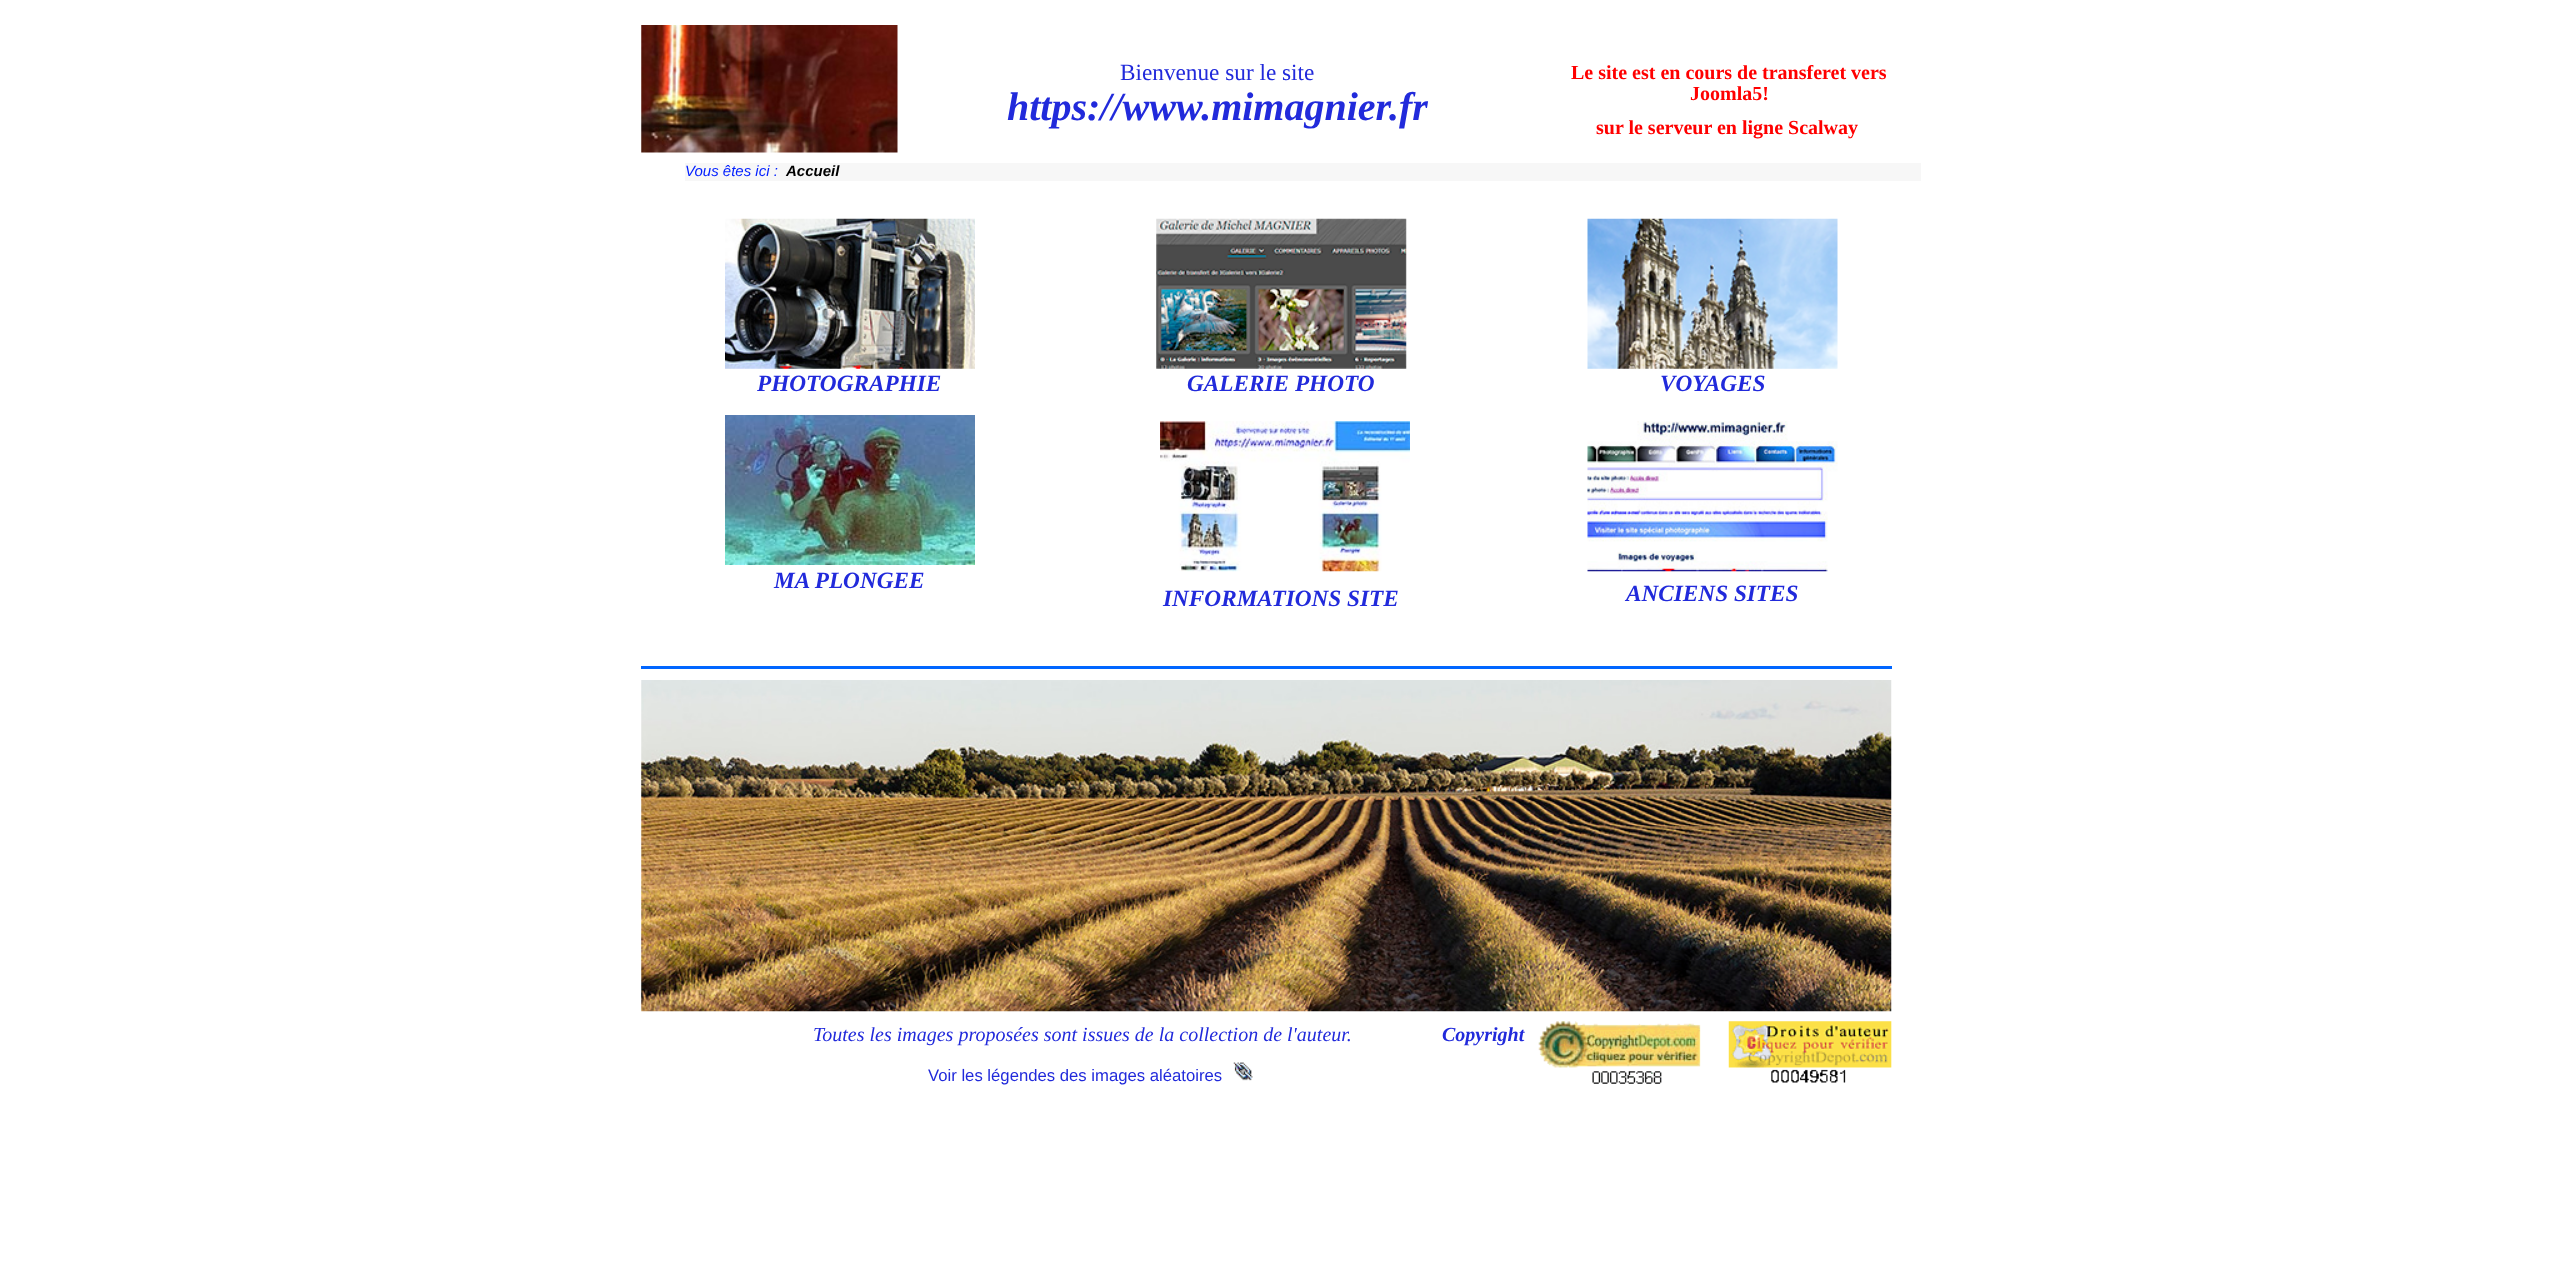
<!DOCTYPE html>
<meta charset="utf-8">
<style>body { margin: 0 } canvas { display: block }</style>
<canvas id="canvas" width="2562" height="1281"></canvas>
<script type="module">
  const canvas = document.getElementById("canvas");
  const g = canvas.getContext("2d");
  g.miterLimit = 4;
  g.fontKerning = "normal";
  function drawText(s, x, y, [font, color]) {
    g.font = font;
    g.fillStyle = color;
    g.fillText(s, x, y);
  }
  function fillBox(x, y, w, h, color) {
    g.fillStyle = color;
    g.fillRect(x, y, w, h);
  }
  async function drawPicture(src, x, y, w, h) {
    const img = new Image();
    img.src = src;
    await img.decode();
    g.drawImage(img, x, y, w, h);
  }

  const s1 = ["23.25px Liberation Serif", "#212ADB"];
  const s2 = ["italic bold 40px Liberation Serif", "#212ADB"];
  const s3 = ["bold 20px Liberation Serif", "#FF0000"];
  const s4 = ["italic 15px Liberation Sans", "#001EFF"];
  const s5 = ["italic bold 15px Liberation Sans", "#000000"];
  const s6 = ["italic bold 23.25px Liberation Serif", "#212ADB"];
  const s7 = ["italic 20px Liberation Serif", "#212ADB"];
  const s8 = ["italic bold 20px Liberation Serif", "#212ADB"];
  const s9 = ["16.7px Liberation Sans", "#212ADB"];

  fillBox(0, 0, 2562, 1281, "#FFFFFF");
  await drawPicture("pic1.png", 641, 25, 257, 128);
  drawText("Bienvenue sur le site", 1120, 80, s1);
  drawText("https://www.mimagnier.fr", 1007, 120, s2);
  drawText("Le site est en cours de transferet vers", 1571, 79, s3);
  drawText("Joomla5!", 1690, 100, s3);
  drawText("sur le serveur en ligne Scalway", 1596, 134, s3);
  fillBox(685, 163, 1236, 18, "#F7F7F7");
  drawText("Vous êtes ici :", 685, 176, s4);
  drawText("Accueil", 786, 176, s5);
  await drawPicture("pic2.png", 725, 218, 250, 151);
  drawText("PHOTOGRAPHIE", 757, 391, s6);
  await drawPicture("pic3.png", 1156, 218, 251, 151);
  drawText("GALERIE PHOTO", 1187, 391, s6);
  await drawPicture("pic4.png", 1587, 218, 251, 151);
  drawText("VOYAGES", 1660, 391, s6);
  await drawPicture("pic5.png", 725, 415, 250, 150);
  drawText("MA PLONGEE", 774, 588, s6);
  await drawPicture("pic6.png", 1160, 421, 250, 151);
  drawText("INFORMATIONS SITE", 1163, 606, s6);
  await drawPicture("pic7.png", 1587, 421, 251, 151);
  drawText("ANCIENS SITES", 1626, 601, s6);
  fillBox(641, 666, 1251, 3, "#0166FF");
  await drawPicture("pic8.png", 641, 680, 1251, 332);
  drawText("Toutes les images proposées sont issues de la collection de l'auteur.", 813, 1041, s7);
  drawText("Copyright", 1442, 1041, s8);
  drawText("Voir les légendes des images aléatoires", 928, 1081, s9);
  await drawPicture("pic9.png", 1233, 1062, 20, 19);
  await drawPicture("pic10.png", 1538, 1021, 163, 63);
  await drawPicture("pic11.png", 1728, 1021, 164, 62);
</script>
